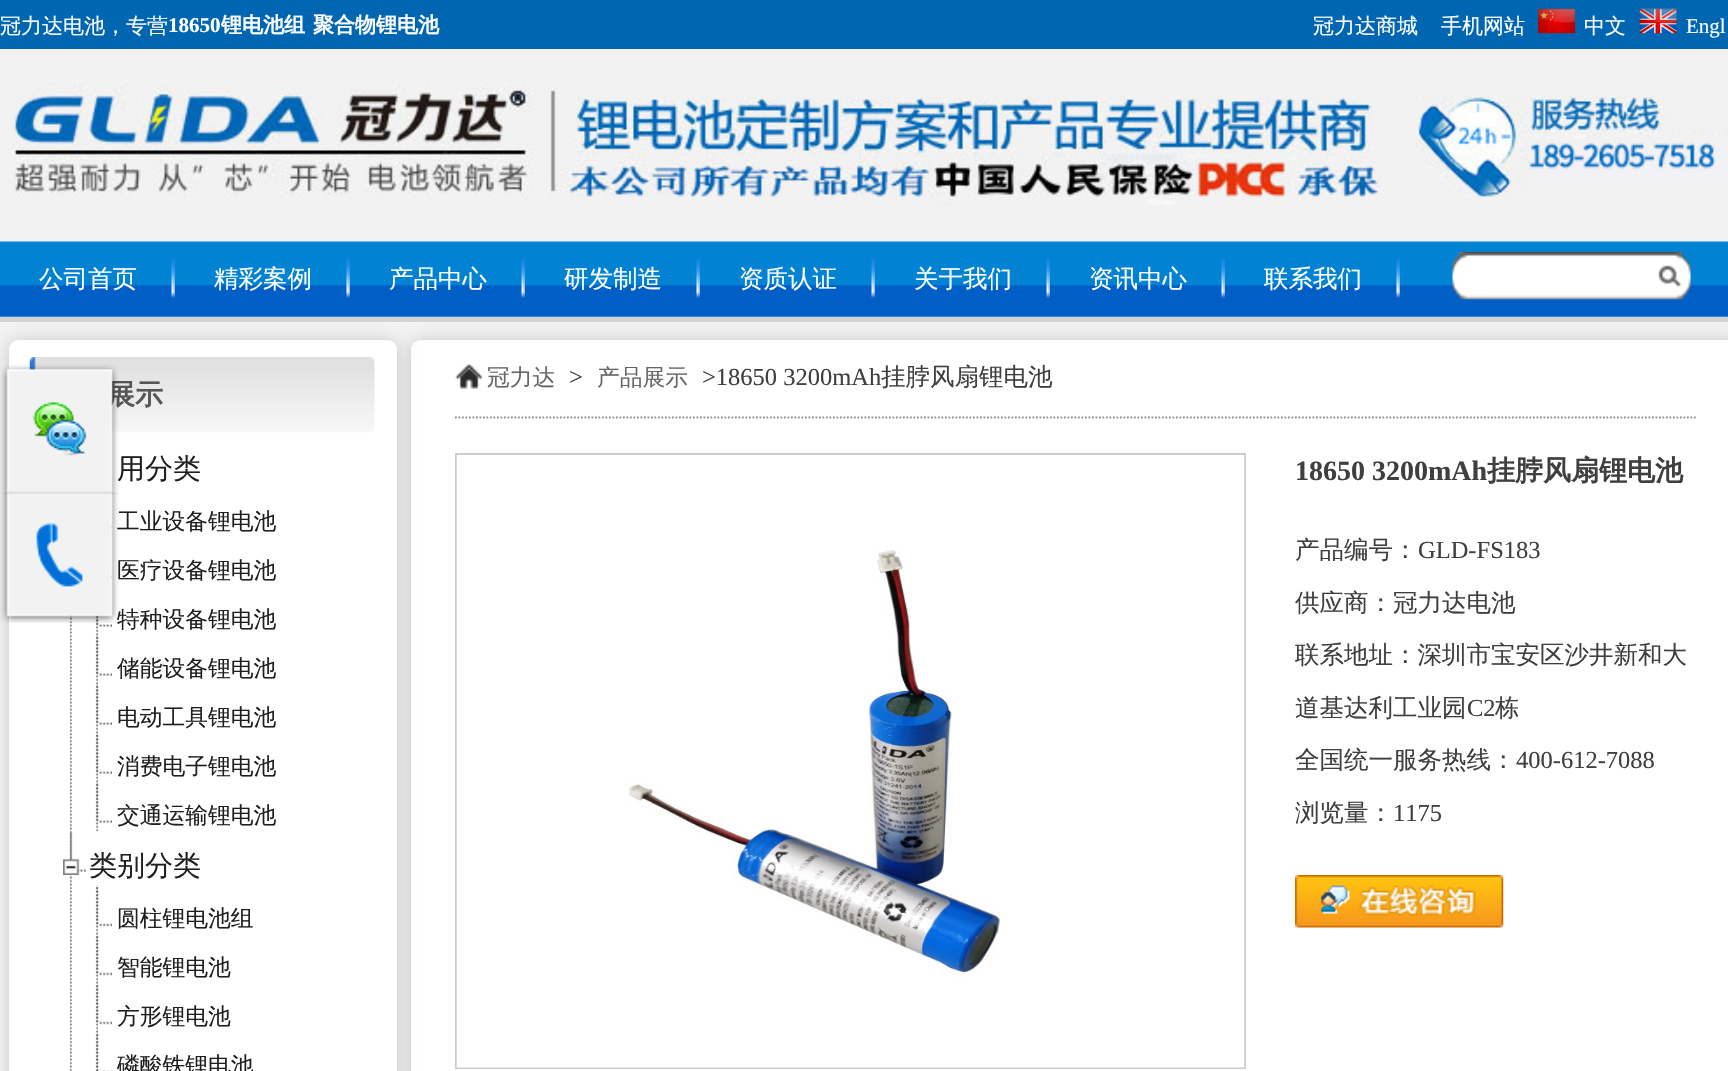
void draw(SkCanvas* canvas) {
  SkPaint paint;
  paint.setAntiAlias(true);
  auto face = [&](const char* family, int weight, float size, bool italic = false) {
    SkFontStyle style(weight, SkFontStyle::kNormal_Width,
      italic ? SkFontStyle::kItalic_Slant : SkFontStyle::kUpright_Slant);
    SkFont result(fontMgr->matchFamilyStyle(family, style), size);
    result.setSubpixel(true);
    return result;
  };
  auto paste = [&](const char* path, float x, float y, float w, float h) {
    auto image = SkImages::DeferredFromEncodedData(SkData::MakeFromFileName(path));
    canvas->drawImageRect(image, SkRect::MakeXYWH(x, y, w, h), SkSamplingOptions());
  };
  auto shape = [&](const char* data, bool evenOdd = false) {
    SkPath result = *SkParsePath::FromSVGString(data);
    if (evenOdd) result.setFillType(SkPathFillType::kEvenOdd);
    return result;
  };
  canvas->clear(0xffffffff);
  paint.setColor(0xff0066b1);
  canvas->drawRect(SkRect::MakeXYWH(0, 0, 1728, 49), paint);
  paste("img/1.png", 1538, 8, 37, 26);
  paste("img/2.png", 1639, 8, 38, 26);
  paint.setColor(0xfff2f2f2);
  canvas->drawRect(SkRect::MakeXYWH(0, 49, 1728, 193), paint);
  paste("img/3.png", 14, 84, 1367, 121);
  paste("img/4.png", 1415, 95, 313, 103);
  paste("img/5.png", 0, 241, 1728, 76);
  paint.setColor(0xffd3d3d3);
  canvas->drawRect(SkRect::MakeXYWH(0, 317, 1728, 5), paint);
  paste("img/6.png", 171, 257, 4, 41);
  paste("img/7.png", 346, 257, 4, 41);
  paste("img/7.png", 521, 257, 4, 41);
  paste("img/7.png", 696, 257, 4, 41);
  paste("img/7.png", 871, 257, 4, 41);
  paste("img/7.png", 1046, 257, 4, 41);
  paste("img/7.png", 1221, 257, 4, 41);
  paste("img/7.png", 1396, 257, 4, 41);
  paste("img/8.png", 1452, 252, 239, 48);
  paint.setColor(0xfff3f3f3);
  canvas->drawRect(SkRect::MakeXYWH(0, 322, 1728, 749), paint);
  paint.setColor(0xffc5c5c5);
  paint.setMaskFilter(SkMaskFilter::MakeBlur(kNormal_SkBlurStyle, 9));
  canvas->drawRoundRect(SkRect::MakeXYWH(411, 341, 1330, 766), 9, 9, paint);
  paint.setMaskFilter(nullptr);
  paint.setColor(0xffffffff);
  canvas->drawRoundRect(SkRect::MakeXYWH(411, 340, 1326, 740), 9, 9, paint);
  paint.setColor(0xffc5c5c5);
  paint.setMaskFilter(SkMaskFilter::MakeBlur(kNormal_SkBlurStyle, 9));
  canvas->drawRoundRect(SkRect::MakeXYWH(9, 341, 388, 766), 9, 9, paint);
  paint.setMaskFilter(nullptr);
  paint.setColor(0xffffffff);
  canvas->drawRoundRect(SkRect::MakeXYWH(9, 340, 388, 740), 9, 9, paint);
  paste("img/11.png", 29, 357, 346, 76);
  paste("img/12.png", 70, 614, 2, 457);
  paste("img/13.png", 96, 614, 2, 218);
  paste("img/14.png", 110, 526, 2, 3);
  paste("img/14.png", 110, 575, 2, 3);
  paste("img/15.png", 95, 614, 17, 13);
  paste("img/16.png", 95, 636, 17, 40);
  paste("img/16.png", 95, 685, 17, 40);
  paste("img/17.png", 95, 734, 17, 40);
  paste("img/18.png", 95, 783, 17, 40);
  paste("img/19.png", 69, 832, 17, 40);
  paste("img/20.png", 63, 858, 17, 17);
  paste("img/21.png", 96, 885, 2, 186);
  paste("img/22.png", 95, 886, 17, 41);
  paste("img/23.png", 95, 935, 17, 41);
  paste("img/24.png", 95, 984, 17, 41);
  paste("img/25.png", 95, 1033, 17, 38);
  paste("img/26.png", 455, 364, 28, 25);
  paint.setStroke(true);
  paint.setStrokeWidth(1.8f);
  paint.setColor(0xff909090);
  paint.setPathEffect(SkDashPathEffect::Make({{1.75f, 1.75f}}, 0));
  canvas->drawPath(shape("M455 417.5H1697.5"), paint);
  paint.setPathEffect(nullptr);
  paint.setStrokeWidth(2);
  paint.setColor(0xffcccccc);
  canvas->drawRect(SkRect::MakeXYWH(456, 454, 789, 614), paint);
  paste("img/27.png", 456, 455, 789, 613);
  paste("img/28.png", 1295, 875, 209, 53);
  auto f0 = face("WenQuanYi Zen Hei", 500, 21);
  paint.setStroke(false);
  paint.setColor(0xffffffff);
  canvas->drawString("冠力达电池，专营", 0, 33, f0, paint);
  auto f1 = face("Liberation Serif", 700, 21);
  canvas->drawString("18650", 168, 32, f1, paint);
  auto f2 = face("WenQuanYi Zen Hei", 700, 21);
  canvas->drawString("锂电池组", 221, 32, f2, paint);
  canvas->drawString("聚合物锂电池", 313, 32, f2, paint);
  {
    const struct { const char* s; float x, y; } items[] = {
      {"冠力达商城", 1313, 33},
      {"手机网站", 1441, 33},
      {"中文", 1584, 33},
    };
    for (auto [s, x, y] : items) {
      canvas->drawString(s, x, y, f0, paint);
    }
  }
  auto f3 = face("Liberation Serif", 400, 21);
  canvas->drawString("Engl", 1686, 33, f3, paint);
  auto f4 = face("WenQuanYi Zen Hei", 500, 24.5f);
  {
    const struct { const char* s; float x, y; } items[] = {
      {"公司首页", 39, 287},
      {"精彩案例", 214, 287},
      {"产品中心", 389, 287},
      {"研发制造", 564, 287},
      {"资质认证", 739, 287},
      {"关于我们", 914, 287},
      {"资讯中心", 1089, 287},
      {"联系我们", 1264, 287},
    };
    for (auto [s, x, y] : items) {
      canvas->drawString(s, x, y, f4, paint);
    }
  }
  auto f5 = face("WenQuanYi Zen Hei", 700, 28);
  paint.setColor(0xff555555);
  canvas->drawString("展示", 107, 404, f5, paint);
  auto f6 = face("WenQuanYi Zen Hei", 500, 28);
  paint.setColor(0xff1f1f1f);
  canvas->drawString("用分类", 117, 478, f6, paint);
  paste("img/9.png", 0, 364, 119, 130);
  auto f7 = face("WenQuanYi Zen Hei", 500, 22.75f);
  {
    const struct { const char* s; float x, y; } items[] = {
      {"工业设备锂电池", 117, 529},
      {"医疗设备锂电池", 117, 578},
      {"特种设备锂电池", 117, 627},
    };
    for (auto [s, x, y] : items) {
      canvas->drawString(s, x, y, f7, paint);
    }
  }
  paste("img/10.png", 0, 493, 119, 130);
  {
    const struct { const char* s; float x, y; } items[] = {
      {"储能设备锂电池", 117, 676},
      {"电动工具锂电池", 117, 725},
      {"消费电子锂电池", 117, 774},
      {"交通运输锂电池", 117, 823},
    };
    for (auto [s, x, y] : items) {
      canvas->drawString(s, x, y, f7, paint);
    }
  }
  canvas->drawString("类别分类", 89, 875, f6, paint);
  {
    const struct { const char* s; float x, y; } items[] = {
      {"圆柱锂电池组", 117, 926},
      {"智能锂电池", 117, 975},
      {"方形锂电池", 117, 1024},
      {"磷酸铁锂电池", 117, 1073},
    };
    for (auto [s, x, y] : items) {
      canvas->drawString(s, x, y, f7, paint);
    }
  }
  paint.setColor(0xff666666);
  canvas->drawString("冠力达", 487, 385, f7, paint);
  auto f8 = face("Liberation Serif", 400, 24.5f);
  paint.setColor(0xff3f3f3f);
  canvas->drawString(">", 569, 385, f8, paint);
  paint.setColor(0xff666666);
  canvas->drawString("产品展示", 597, 385, f7, paint);
  paint.setColor(0xff3f3f3f);
  canvas->drawString(">18650 3200mAh", 702, 385, f8, paint);
  canvas->drawString("挂脖风扇锂电池", 881, 385, f4, paint);
  auto f9 = face("Liberation Serif", 700, 28);
  canvas->drawString("18650 3200mAh", 1295, 480, f9, paint);
  canvas->drawString("挂脖风扇锂电池", 1487, 480, f5, paint);
  canvas->drawString("产品编号：", 1295, 558, f4, paint);
  canvas->drawString("GLD-FS183", 1418, 558, f8, paint);
  {
    const struct { const char* s; float x, y; } items[] = {
      {"供应商：冠力达电池", 1295, 611},
      {"联系地址：深圳市宝安区沙井新和大", 1295, 663},
      {"道基达利工业园", 1295, 716},
    };
    for (auto [s, x, y] : items) {
      canvas->drawString(s, x, y, f4, paint);
    }
  }
  canvas->drawString("C2", 1467, 716, f8, paint);
  canvas->drawString("栋", 1495, 716, f4, paint);
  canvas->drawString("全国统一服务热线：", 1295, 768, f4, paint);
  canvas->drawString("400-612-7088", 1516, 768, f8, paint);
  canvas->drawString("浏览量：", 1295, 821, f4, paint);
  canvas->drawString("1175", 1393, 821, f8, paint);
}
